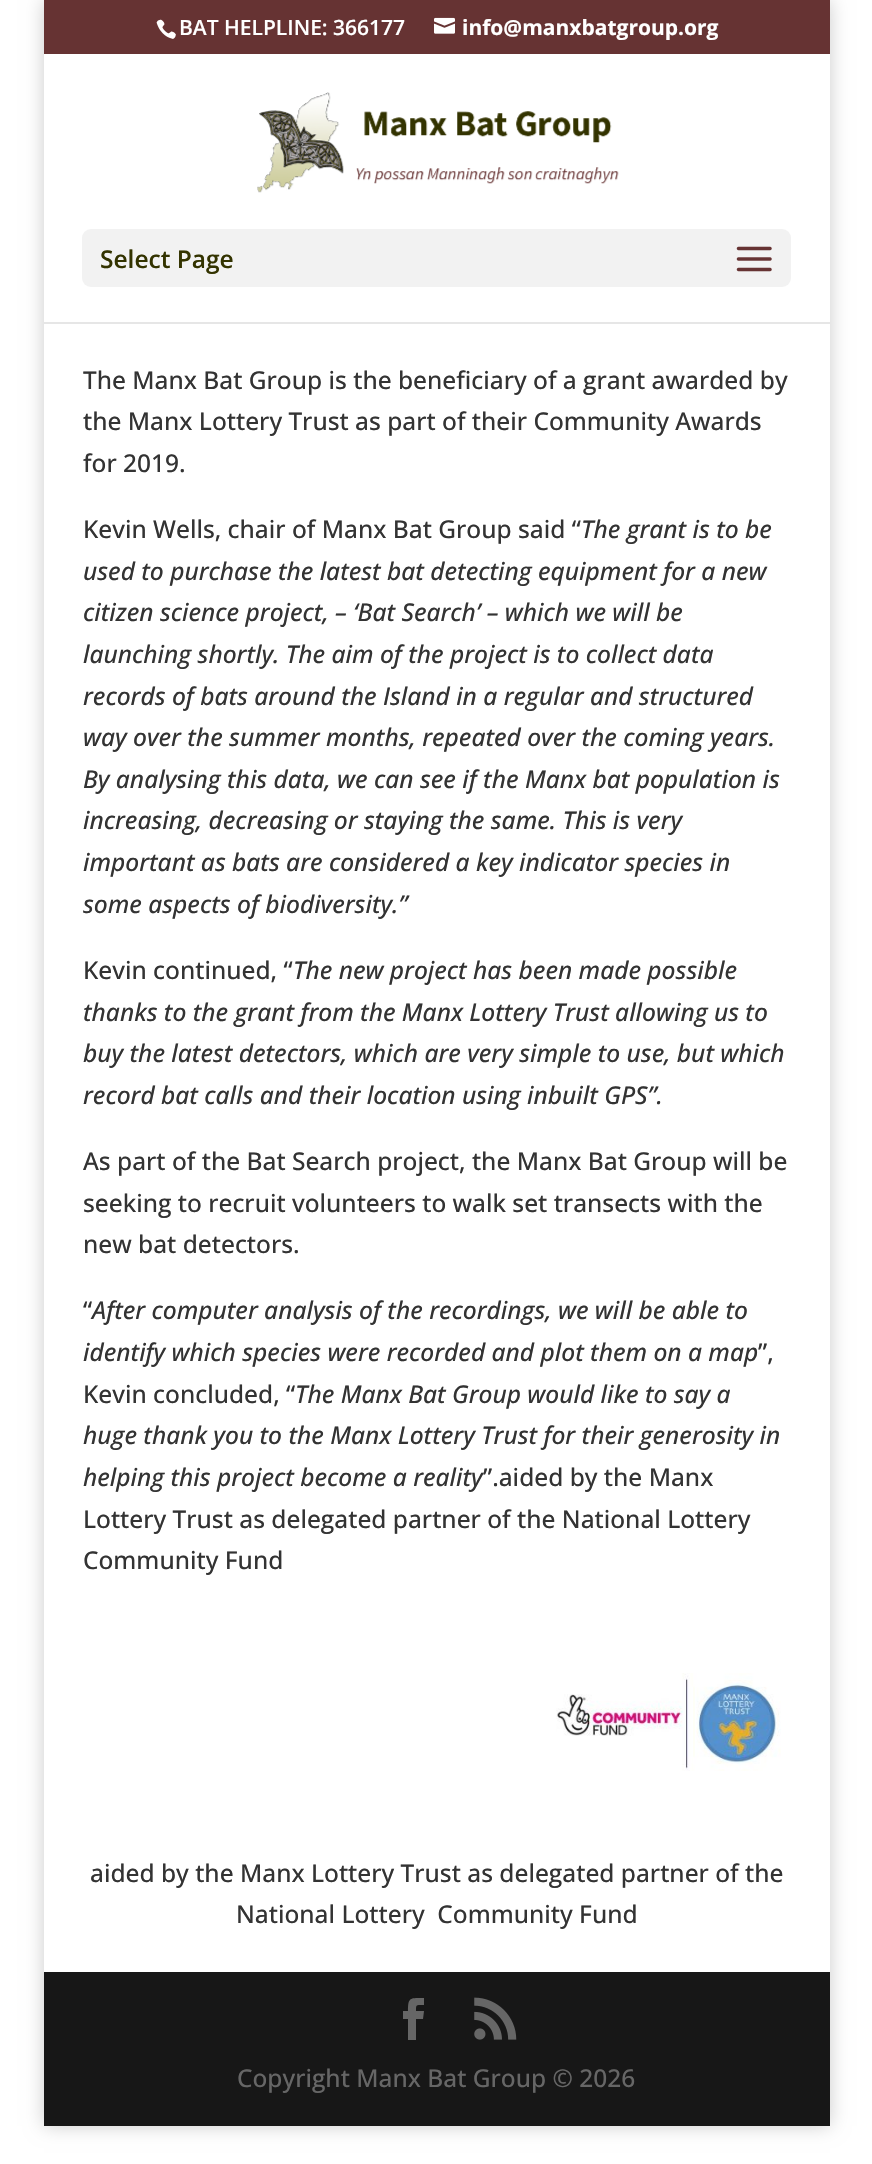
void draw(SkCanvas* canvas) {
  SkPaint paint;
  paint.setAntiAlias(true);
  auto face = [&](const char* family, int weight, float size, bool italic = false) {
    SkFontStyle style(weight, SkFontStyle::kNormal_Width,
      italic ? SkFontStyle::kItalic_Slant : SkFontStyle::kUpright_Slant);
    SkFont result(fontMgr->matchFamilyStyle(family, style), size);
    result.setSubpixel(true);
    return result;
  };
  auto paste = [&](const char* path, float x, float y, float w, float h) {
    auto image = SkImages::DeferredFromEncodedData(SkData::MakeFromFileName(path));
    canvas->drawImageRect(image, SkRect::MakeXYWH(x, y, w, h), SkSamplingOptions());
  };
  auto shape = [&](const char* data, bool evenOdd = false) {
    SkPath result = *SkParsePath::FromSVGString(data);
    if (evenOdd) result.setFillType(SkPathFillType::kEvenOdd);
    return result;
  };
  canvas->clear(0xffffffff);
  paint.setColor(0x33000000);
  paint.setMaskFilter(SkMaskFilter::MakeBlur(kNormal_SkBlurStyle, 9));
  canvas->drawRect(SkRect::MakeXYWH(44, 0, 786, 2126), paint);
  paint.setMaskFilter(nullptr);
  paint.setColor(0xff663333);
  canvas->drawRect(SkRect::MakeXYWH(44, 0, 786, 54), paint);
  paste("img/1.png", 156, 19, 20, 20);
  paste("img/2.png", 434, 17, 21, 17);
  paint.setColor(0xffe6e6e6);
  canvas->drawPath(shape("M44 322V324H830V56V322Z"), paint);
  paint.setColor(0xffffffff);
  canvas->drawRect(SkRect::MakeXYWH(44, 54, 786, 268), paint);
  paste("img/3.png", 257, 92, 362, 101);
  paint.setColor(0xfff2f2f2);
  canvas->drawRoundRect(SkRect::MakeXYWH(82, 229, 709, 58), 9, 9, paint);
  paste("img/4.png", 736, 246, 36, 26);
  paint.setColor(0xffffffff);
  canvas->drawRect(SkRect::MakeXYWH(44, 324, 786, 1648), paint);
  paste("img/5.png", 556, 1673, 225, 98);
  paint.setColor(0xff171717);
  canvas->drawRect(SkRect::MakeXYWH(44, 1972, 786, 154), paint);
  paint.setColor(0xff666666);
  canvas->drawPath(shape("M408 2040H416V2019H423L424 2011H416C416 2004 416 2005 424 2005V1998C410 1998 408 1997 408 2011H403V2019H408Z"), paint);
  paste("img/6.png", 474, 1997, 43, 43);
  auto f0 = face("Open Sans", 600, 21);
  paint.setColor(0xffffffff);
  canvas->drawString("BAT HELPLINE: 366177", 179, 35, f0, paint);
  auto f1 = face("Open Sans", 700, 21);
  canvas->drawString("info@manxbatgroup.org", 462, 35, f1, paint);
  auto f2 = face("Open Sans", 600, 24.5f);
  paint.setColor(0xff333300);
  canvas->drawString("Select Page", 100, 268, f2, paint);
  auto f3 = face("Open Sans", 500, 24.5f);
  paint.setColor(0xff333333);
  {
    const struct { const char* s; float x, y; } items[] = {
      {"The Manx Bat Group is the beneficiary of a grant awarded by", 83, 389},
      {"the Manx Lottery Trust as part of their Community Awards", 83, 430},
      {"for 2019.", 83, 472},
      {"Kevin Wells, chair of Manx Bat Group said “", 83, 538},
    };
    for (auto [s, x, y] : items) {
      canvas->drawString(s, x, y, f3, paint);
    }
  }
  auto f4 = face("Open Sans", 500, 24.5f, true);
  {
    const struct { const char* s; float x, y; } items[] = {
      {"The grant is to be", 581, 538},
      {"used to purchase the latest bat detecting equipment for a new", 83, 580},
      {"citizen science project, – ‘Bat Search’ – which we will be", 83, 621},
      {"launching shortly. The aim of the project is to collect data", 83, 663},
      {"records of bats around the Island in a regular and structured", 83, 705},
      {"way over the summer months, repeated over the coming years.", 83, 746},
      {"By analysing this data, we can see if the Manx bat population is", 83, 788},
      {"increasing, decreasing or staying the same. This is very", 83, 829},
      {"important as bats are considered a key indicator species in", 83, 871},
      {"some aspects of biodiversity.”", 83, 913},
    };
    for (auto [s, x, y] : items) {
      canvas->drawString(s, x, y, f4, paint);
    }
  }
  canvas->drawString("Kevin continued, “", 83, 979, f3, paint);
  {
    const struct { const char* s; float x, y; } items[] = {
      {"The new project has been made possible", 293, 979},
      {"thanks to the grant from the Manx Lottery Trust allowing us to", 83, 1021},
      {"buy the latest detectors, which are very simple to use, but which", 83, 1062},
      {"record bat calls and their location using inbuilt GPS”.", 83, 1104},
    };
    for (auto [s, x, y] : items) {
      canvas->drawString(s, x, y, f4, paint);
    }
  }
  {
    const struct { const char* s; float x, y; } items[] = {
      {"As part of the Bat Search project, the Manx Bat Group will be", 83, 1170},
      {"seeking to recruit volunteers to walk set transects with the", 83, 1212},
      {"new bat detectors.", 83, 1253},
      {"“", 83, 1319},
    };
    for (auto [s, x, y] : items) {
      canvas->drawString(s, x, y, f3, paint);
    }
  }
  canvas->drawString("After computer analysis of the recordings, we will be able to", 92, 1319, f4, paint);
  canvas->drawString("identify which species were recorded and plot them on a map", 83, 1361, f4, paint);
  canvas->drawString("”,", 758, 1361, f3, paint);
  canvas->drawString("Kevin concluded, “", 83, 1403, f3, paint);
  {
    const struct { const char* s; float x, y; } items[] = {
      {"The Manx Bat Group would like to say a", 295, 1403},
      {"huge thank you to the Manx Lottery Trust for their generosity in", 83, 1444},
      {"helping this project become a reality", 83, 1486},
    };
    for (auto [s, x, y] : items) {
      canvas->drawString(s, x, y, f4, paint);
    }
  }
  {
    const struct { const char* s; float x, y; } items[] = {
      {"”.aided by the Manx", 483, 1486},
      {"Lottery Trust as delegated partner of the National Lottery", 83, 1528},
      {"Community Fund", 83, 1569},
      {"aided by the Manx Lottery Trust as delegated partner of the", 90, 1882},
      {"National Lottery  Community Fund", 236, 1923},
    };
    for (auto [s, x, y] : items) {
      canvas->drawString(s, x, y, f3, paint);
    }
  }
  paint.setColor(0xff666666);
  canvas->drawString("Copyright Manx Bat Group © 2026", 237, 2087, f3, paint);
}
